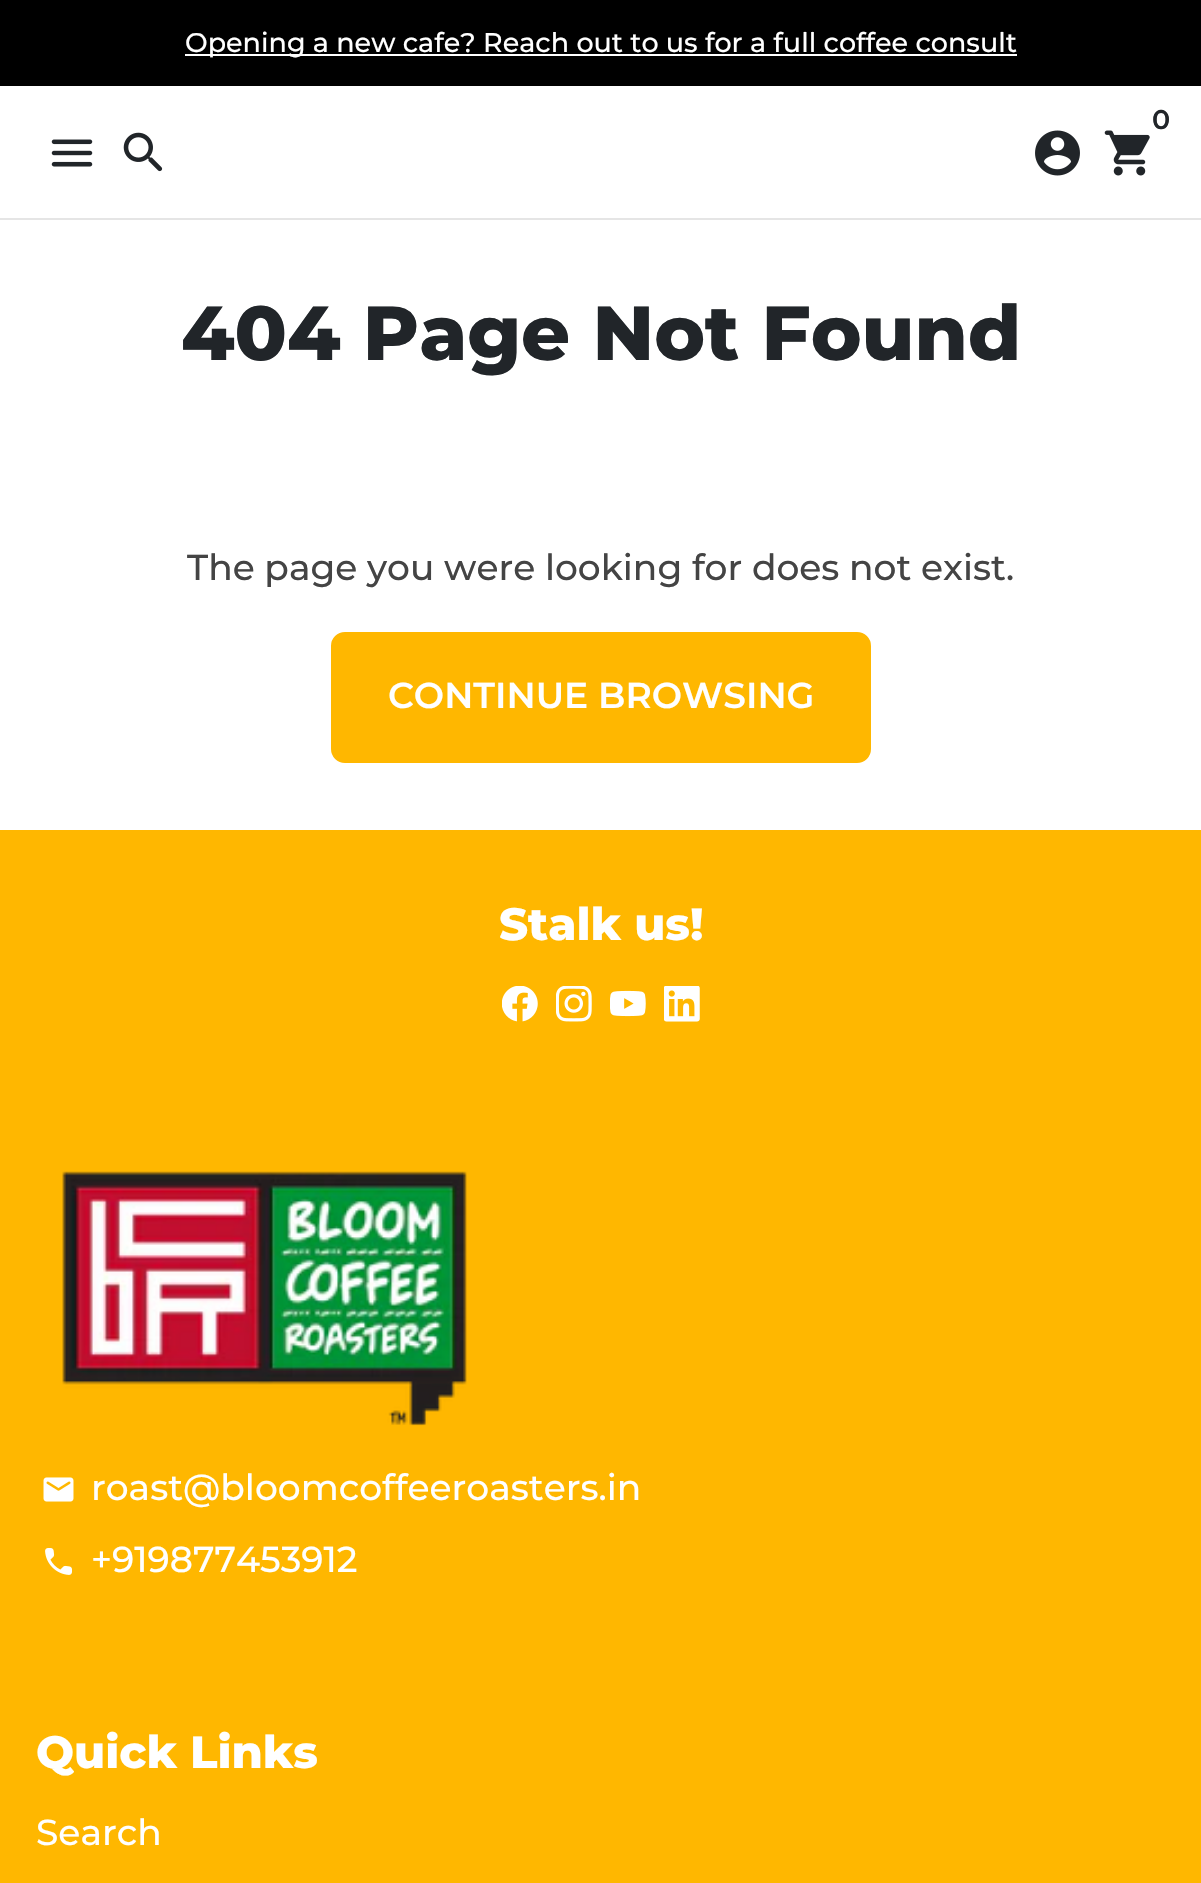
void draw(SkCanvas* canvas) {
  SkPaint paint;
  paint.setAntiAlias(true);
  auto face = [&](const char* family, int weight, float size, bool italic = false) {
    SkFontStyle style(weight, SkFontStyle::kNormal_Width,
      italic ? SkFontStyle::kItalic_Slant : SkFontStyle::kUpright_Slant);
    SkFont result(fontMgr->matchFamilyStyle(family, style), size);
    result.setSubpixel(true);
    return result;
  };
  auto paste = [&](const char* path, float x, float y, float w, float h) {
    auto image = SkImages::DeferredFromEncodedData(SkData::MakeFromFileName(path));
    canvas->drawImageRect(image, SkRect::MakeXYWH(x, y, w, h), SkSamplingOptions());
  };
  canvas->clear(0xffffffff);
  {
    const struct { float x, y, w, h; SkColor color; } items[] = {
      {0, 0, 1201, 86, 0xff000000},
      {185, 54, 832, 2, 0xffffffff},
      {0, 218, 1201, 2, 0xffe5e5e5},
    };
    for (auto [x, y, w, h, color] : items) {
      paint.setColor(color);
      canvas->drawRect(SkRect::MakeXYWH(x, y, w, h), paint);
    }
  }
  paste("img/1.png", 1104, 130, 46, 46);
  paste("img/2.png", 1035, 130, 45, 46);
  paste("img/3.png", 51, 139, 42, 28);
  paste("img/4.png", 123, 132, 40, 40);
  paint.setColor(0xffffb700);
  canvas->drawRoundRect(SkRect::MakeXYWH(332, 633, 538, 129), 13, 13, paint);
  paint.setStroke(true);
  paint.setStrokeWidth(2);
  canvas->drawRoundRect(SkRect::MakeXYWH(332, 633, 538, 129), 13, 13, paint);
  paint.setStroke(false);
  canvas->drawRect(SkRect::MakeXYWH(0, 830, 1201, 1053), paint);
  paste("img/5.png", 502, 986, 36, 36);
  paste("img/6.png", 556, 986, 36, 36);
  paste("img/7.png", 610, 990, 36, 27);
  paste("img/8.png", 664, 986, 36, 36);
  paste("img/9.png", 62, 1171, 405, 255);
  paste("img/10.png", 43, 1477, 31, 25);
  paste("img/11.png", 45, 1548, 27, 27);
  auto f0 = face("Montserrat", 500, 27);
  paint.setColor(0xffffffff);
  canvas->drawString("Opening a new cafe? Reach out to us for a full coffee consult", 185, 52, f0, paint);
  auto f1 = face("Montserrat", 600, 27);
  paint.setColor(0xff212529);
  canvas->drawString("0", 1152, 129, f1, paint);
  auto f2 = face("Montserrat", 800, 76.5f);
  canvas->drawString("404 Page Not Found", 181, 360, f2, paint);
  auto f3 = face("Montserrat", 500, 36);
  paint.setColor(0xff444444);
  canvas->drawString("The page you were looking for does not exist.", 187, 580, f3, paint);
  auto f4 = face("Montserrat", 600, 36);
  paint.setColor(0xffffffff);
  canvas->drawString("CONTINUE BROWSING", 388, 708, f4, paint);
  auto f5 = face("Montserrat", 800, 45);
  canvas->drawString("Stalk us!", 499, 940, f5, paint);
  canvas->drawString("roast@bloomcoffeeroasters.in", 91, 1500, f3, paint);
  canvas->drawString("+919877453912", 91, 1572, f3, paint);
  canvas->drawString("Quick Links", 36, 1768, f5, paint);
  canvas->drawString("Search", 36, 1845, f3, paint);
}
